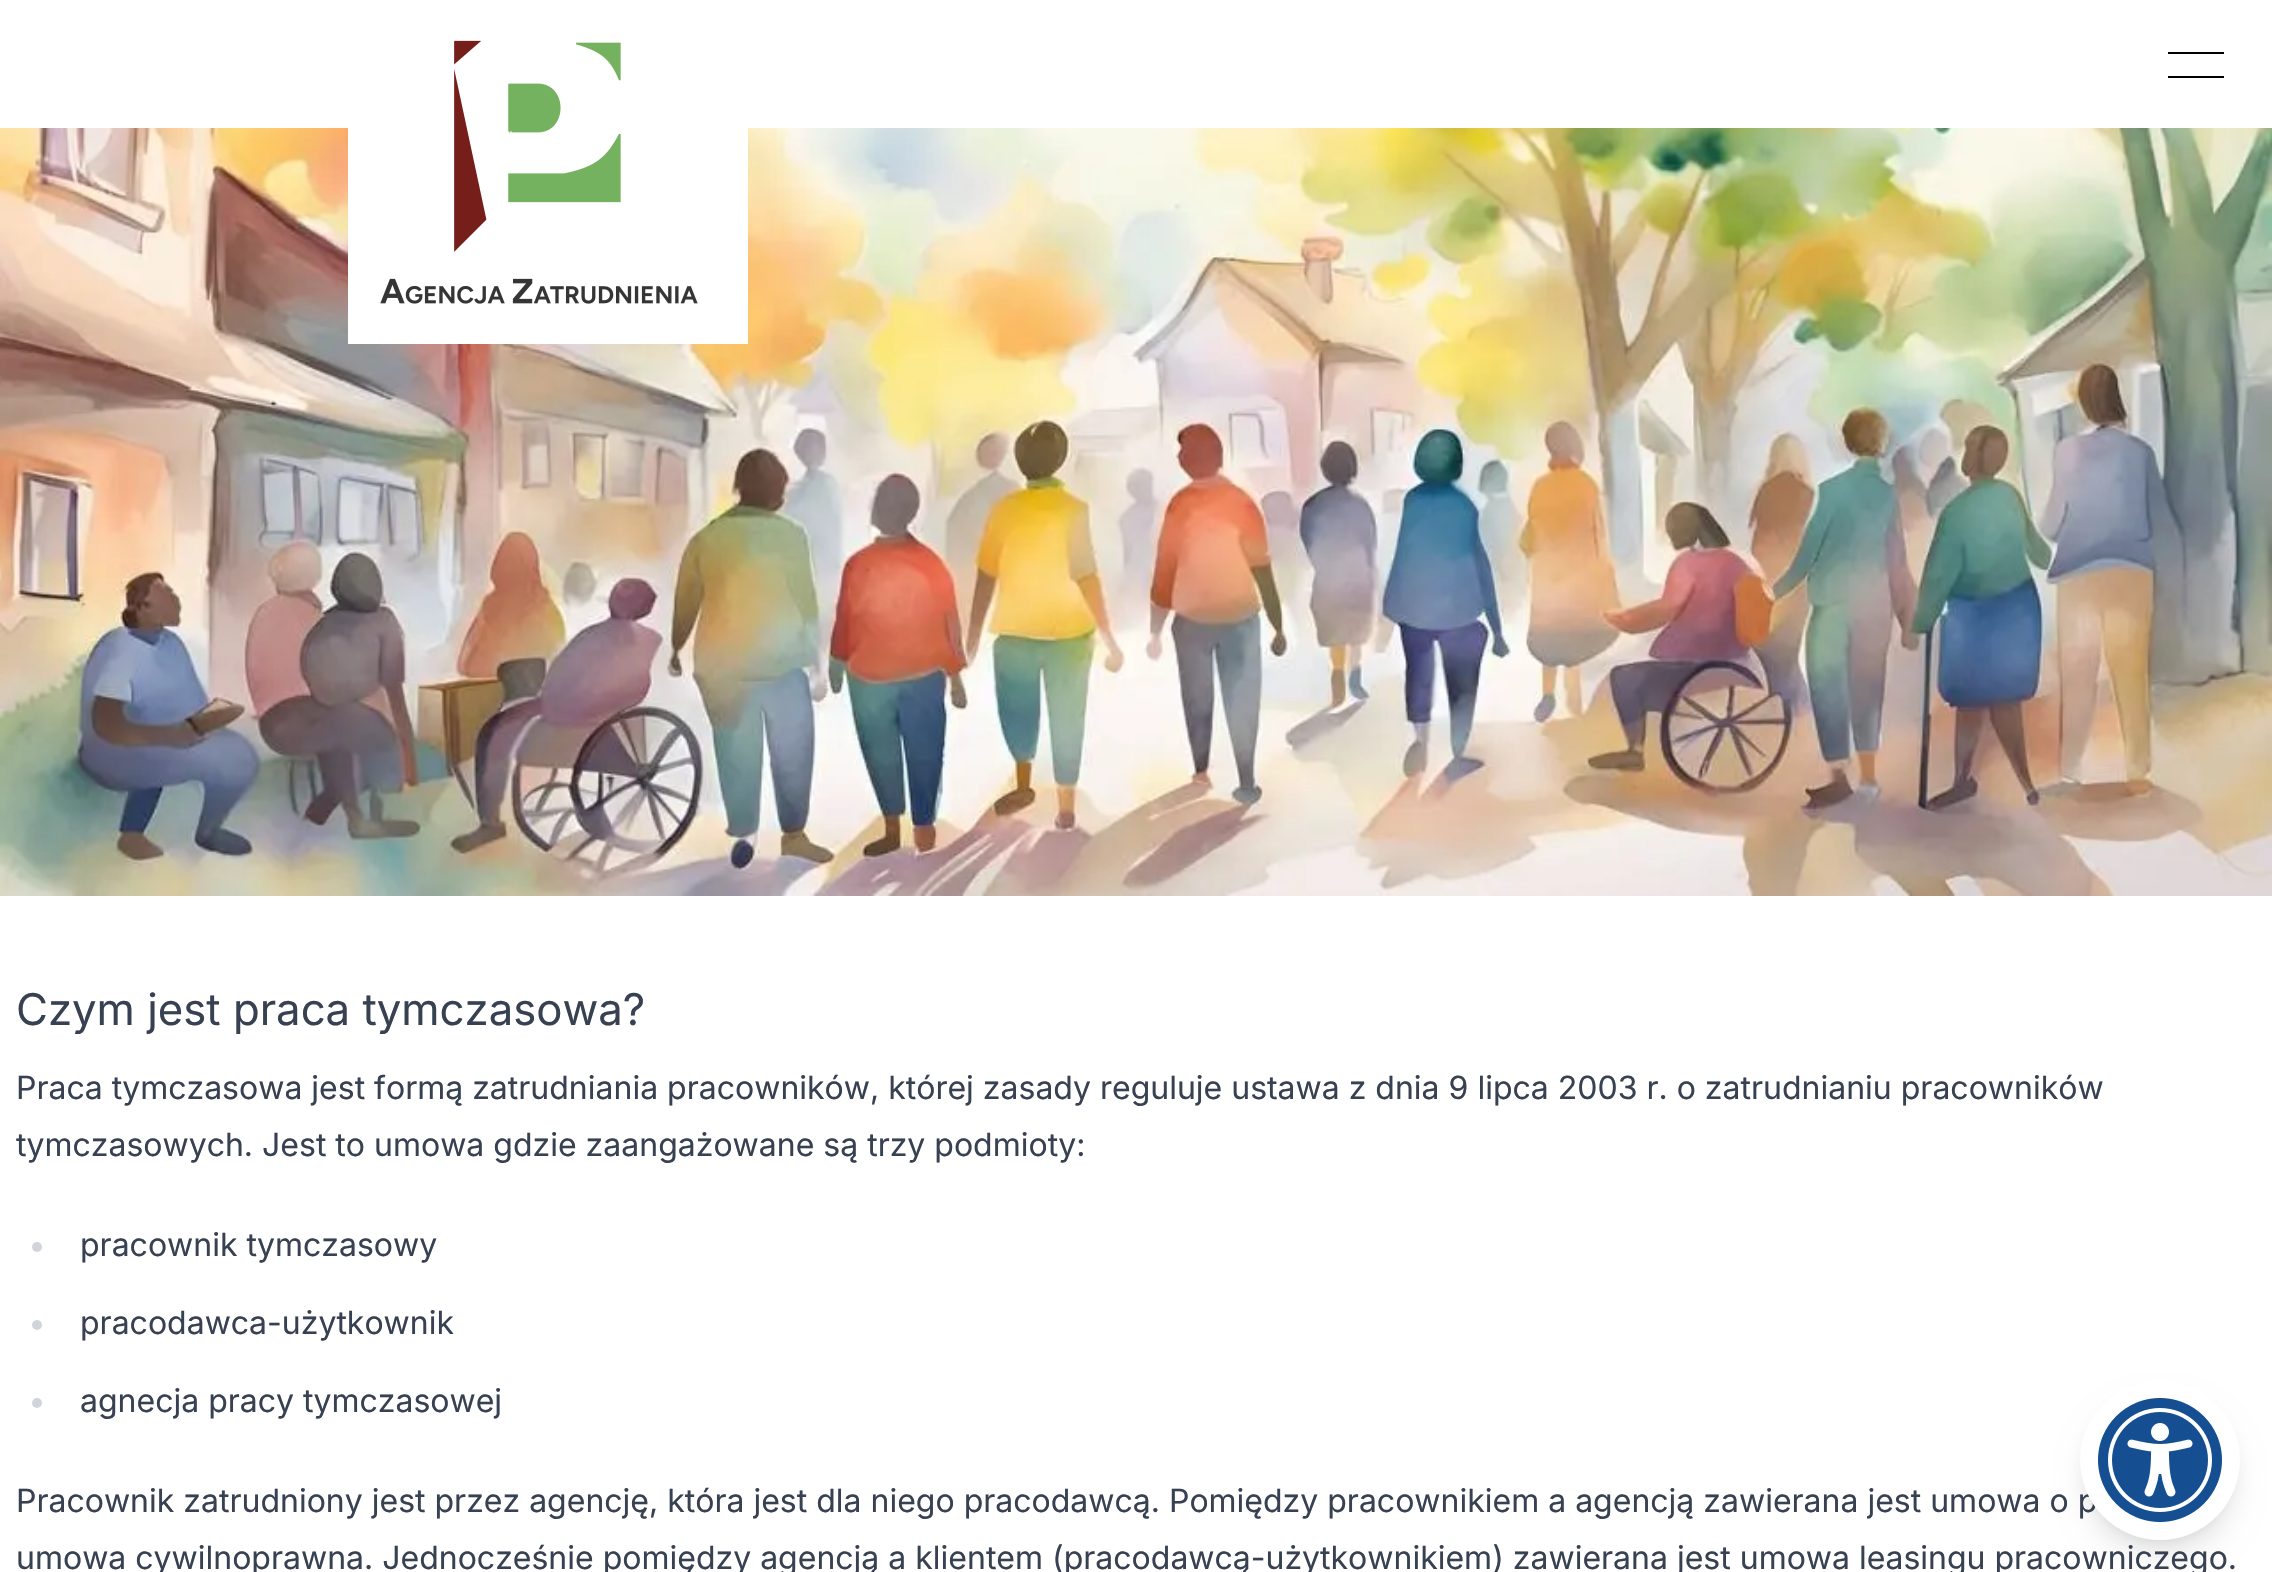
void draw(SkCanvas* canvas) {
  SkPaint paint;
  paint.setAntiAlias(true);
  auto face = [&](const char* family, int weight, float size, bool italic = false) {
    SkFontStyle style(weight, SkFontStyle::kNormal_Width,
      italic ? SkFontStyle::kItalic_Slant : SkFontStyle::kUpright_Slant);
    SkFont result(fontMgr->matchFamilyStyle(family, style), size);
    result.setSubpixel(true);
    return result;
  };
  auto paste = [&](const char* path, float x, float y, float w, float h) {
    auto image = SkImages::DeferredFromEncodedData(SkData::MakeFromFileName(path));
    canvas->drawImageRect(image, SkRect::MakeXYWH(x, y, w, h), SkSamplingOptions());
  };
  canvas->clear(0xffffffff);
  paste("img/3.png", 0, 128, 2272, 768);
  paint.setColor(0xffffffff);
  canvas->drawRect(SkRect::MakeXYWH(348, 128, 400, 216), paint);
  paste("img/1.png", 380, 40, 318, 264);
  paint.setColor(0xff000000);
  canvas->drawRect(SkRect::MakeXYWH(2168, 52, 56, 2), paint);
  canvas->drawRect(SkRect::MakeXYWH(2168, 76, 56, 2), paint);
  paint.setColor(0x1a000000);
  paint.setMaskFilter(SkMaskFilter::MakeBlur(kNormal_SkBlurStyle, 6));
  canvas->drawRoundRect(SkRect::MakeXYWH(2088, 1396, 144, 144), 72, 72, paint);
  paint.setMaskFilter(nullptr);
  paint.setMaskFilter(SkMaskFilter::MakeBlur(kNormal_SkBlurStyle, 15));
  canvas->drawRoundRect(SkRect::MakeXYWH(2086, 1406, 148, 148), 74, 74, paint);
  paint.setMaskFilter(nullptr);
  paint.setColor(0xffd1d5db);
  canvas->drawCircle(37, 1247, 5, paint);
  canvas->drawCircle(37, 1325, 5, paint);
  canvas->drawCircle(37, 1403, 5, paint);
  auto f0 = face("Inter", 400, 43.7f);
  paint.setColor(0xff374151);
  canvas->drawString("Czym jest praca tymczasowa?", 16, 1025, f0, paint);
  auto f1 = face("Inter", 400, 32);
  {
    const struct { const char* s; float x, y; } items[] = {
      {"Praca tymczasowa jest formą zatrudniania pracowników, której zasady reguluje ustawa z dnia 9 lipca 2003 r. o zatrudnianiu pracowników", 16, 1099},
      {"tymczasowych. Jest to umowa gdzie zaangażowane są trzy podmioty:", 16, 1156},
      {"pracownik tymczasowy", 80, 1256},
      {"pracodawca-użytkownik", 80, 1334},
      {"agnecja pracy tymczasowej", 80, 1412},
      {"Pracownik zatrudniony jest przez agencję, która jest dla niego pracodawcą. Pomiędzy pracownikiem a agencją zawierana jest umowa o p", 16, 1512},
    };
    for (auto [s, x, y] : items) {
      canvas->drawString(s, x, y, f1, paint);
    }
  }
  paint.setColor(0xffffffff);
  canvas->drawCircle(2160, 1460, 80, paint);
  paste("img/2.png", 2098, 1398, 124, 124);
  paint.setColor(0xff374151);
  canvas->drawString("umowa cywilnoprawna. Jednocześnie pomiędzy agencją a klientem (pracodawcą-użytkownikiem) zawierana jest umowa leasingu pracowniczego.", 16, 1569, f1, paint);
}
